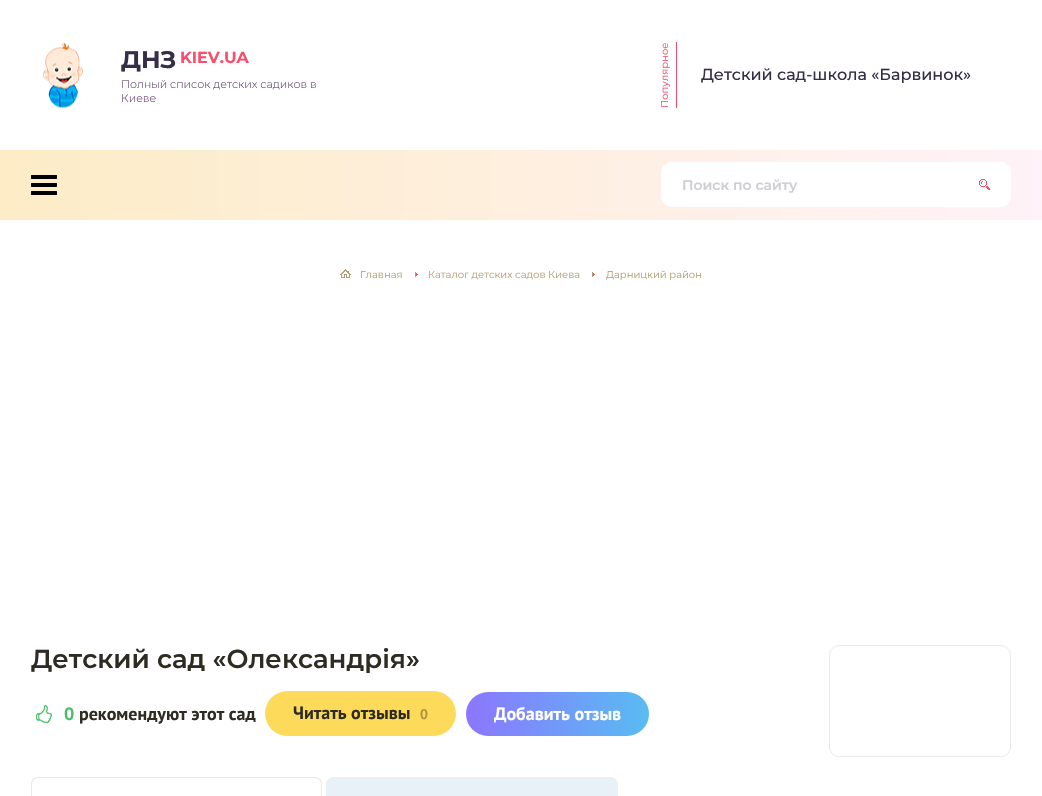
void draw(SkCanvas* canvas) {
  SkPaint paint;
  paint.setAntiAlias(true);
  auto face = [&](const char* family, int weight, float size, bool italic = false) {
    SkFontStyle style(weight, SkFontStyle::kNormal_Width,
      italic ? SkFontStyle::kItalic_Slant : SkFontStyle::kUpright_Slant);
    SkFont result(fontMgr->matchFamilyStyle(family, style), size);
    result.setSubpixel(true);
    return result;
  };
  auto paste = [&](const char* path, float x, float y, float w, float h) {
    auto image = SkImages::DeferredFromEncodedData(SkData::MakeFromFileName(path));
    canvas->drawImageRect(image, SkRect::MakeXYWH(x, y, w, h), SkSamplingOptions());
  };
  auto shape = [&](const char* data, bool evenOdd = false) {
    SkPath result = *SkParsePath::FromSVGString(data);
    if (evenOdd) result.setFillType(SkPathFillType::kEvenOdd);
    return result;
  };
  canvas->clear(0xffffffff);
  paste("img/1.png", 42, 42, 41, 66);
  paint.setColor(0xfff74e6e);
  canvas->drawRect(SkRect::MakeXYWH(676, 42, 1, 66), paint);
  {
    const SkColor colors[] = {0xfffdecc6, 0xfffff2f8};
    const float stops[] = {0, 1};
    const SkPoint ends[] = {{0, 185}, {1042, 185}};
    paint.setShader(SkGradientShader::MakeLinear(ends, colors, stops, 2, SkTileMode::kClamp));
    paint.setAlpha(255);
  }
  canvas->drawRect(SkRect::MakeXYWH(0, 150, 1042, 70), paint);
  paint.setShader(nullptr);
  paint.setColor(0xffffffff);
  canvas->drawRoundRect(SkRect::MakeXYWH(661.5f, 162.5f, 349, 44), 9.5f, 9.5f, paint);
  paint.setStroke(true);
  paint.setStrokeWidth(1);
  canvas->drawRoundRect(SkRect::MakeXYWH(661.5f, 162.5f, 349, 44), 9.5f, 9.5f, paint);
  paste("img/2.png", 979, 179, 11, 11);
  paste("img/3.png", 31, 175, 26, 20);
  paste("img/4.png", 340, 269, 11, 9);
  paint.setStroke(false);
  {
    const struct { float x, y, w, h; SkColor color; } items[] = {
      {415, 272, 1, 5, 0xffb39e71},
      {416, 273, 1, 3, 0xfff74e6e},
      {417, 274, 1, 1, 0xfff74e6e},
      {592, 272, 1, 5, 0xffb39e71},
      {593, 273, 1, 3, 0xfff74e6e},
      {594, 274, 1, 1, 0xfff74e6e},
    };
    for (auto [x, y, w, h, color] : items) {
      paint.setColor(color);
      canvas->drawRect(SkRect::MakeXYWH(x, y, w, h), paint);
    }
  }
  paste("img/5.png", 36, 705, 16, 18);
  paint.setColor(0xfffdda59);
  canvas->drawRoundRect(SkRect::MakeXYWH(265, 691, 191, 45), 22.5f, 22.5f, paint);
  {
    const SkColor colors[] = {0xff8c76ff, 0xff58bcf2};
    const float stops[] = {0, 1};
    const SkPoint ends[] = {{466, 714}, {649, 714}};
    paint.setShader(SkGradientShader::MakeLinear(ends, colors, stops, 2, SkTileMode::kClamp));
    paint.setAlpha(255);
  }
  canvas->drawRoundRect(SkRect::MakeXYWH(466, 692, 183, 44), 22, 22, paint);
  paint.setStroke(true);
  paint.setShader(nullptr);
  paint.setColor(0xffeae9e9);
  canvas->drawRoundRect(SkRect::MakeXYWH(829.5f, 645.5f, 181, 111), 9.5f, 9.5f, paint);
  paint.setStroke(false);
  canvas->drawPath(shape("M38 777C36 777 34 778 33 779L34 780C35 779 36 778 38 778H315C316 778 318 779 319 780L320 779C319 778 317 777 315 777Z"), paint);
  canvas->drawPath(shape("M322 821V784C322 782 321 780 320 779L319 780C320 781 321 782 321 784V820Z"), paint);
  canvas->drawPath(shape("M31 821L32 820V784C32 782 33 781 34 780L33 779C32 780 31 782 31 784Z"), paint);
  paint.setColor(0xffe8f0f8);
  canvas->drawPath(shape("M333 777.5H611C614.5 777.5 617.5 780.5 617.5 784V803.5H326.5V784C326.5 780.5 329.5 777.5 333 777.5Z"), paint);
  paint.setStroke(true);
  canvas->drawPath(shape("M333 777.5H611C614.5 777.5 617.5 780.5 617.5 784V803.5H326.5V784C326.5 780.5 329.5 777.5 333 777.5Z"), paint);
  auto f0 = face("Montserrat", 700, 24);
  paint.setStroke(false);
  paint.setColor(0xff362e48);
  canvas->drawString("ДНЗ", 121, 68, f0, paint);
  auto f1 = face("Montserrat", 700, 16);
  paint.setColor(0xfff74e6e);
  canvas->drawString("KIEV.UA", 180, 63, f1, paint);
  auto f2 = face("Montserrat", 300, 11);
  paint.setColor(0xff5e3f66);
  canvas->drawString("Полный список детских садиков в", 121, 88, f2, paint);
  canvas->drawString("Киеве", 121, 102, f2, paint);
  auto f3 = face("Montserrat", 400, 10);
  paint.setColor(0xfff74e6e);
  canvas->save();
  canvas->rotate(-90, 668, 108);
  canvas->drawString("Популярное", 668, 108, f3, paint);
  canvas->restore();
  auto f4 = face("Montserrat", 500, 16);
  paint.setColor(0xff362e48);
  canvas->drawString("Детский сад-школа «Барвинок»", 701, 80, f4, paint);
  auto f5 = face("Montserrat", 600, 14);
  paint.setColor(0xffcfcdd3);
  canvas->drawString("Поиск по сайту", 682, 190, f5, paint);
  paint.setColor(0xffb39e71);
  {
    const struct { const char* s; float x, y; } items[] = {
      {"Главная", 360, 278},
      {"Каталог детских садов Киева", 428, 278},
      {"Дарницкий район", 606, 278},
    };
    for (auto [s, x, y] : items) {
      canvas->drawString(s, x, y, f3, paint);
    }
  }
  auto f6 = face("Montserrat", 600, 26);
  paint.setColor(0xff2e2b23);
  canvas->drawString("Детский сад «Олександрія»", 31, 668, f6, paint);
  auto f7 = face("PT Sans", 700, 18);
  paint.setColor(0xff4bbc68);
  canvas->drawString("0", 64, 720, f7, paint);
  paint.setColor(0xff2e2b23);
  canvas->drawString("рекомендуют этот сад", 79, 720, f7, paint);
  canvas->drawString("Читать отзывы", 293, 719, f7, paint);
  auto f8 = face("PT Sans", 700, 14);
  paint.setColor(0xffaa9341);
  canvas->drawString("0", 420, 719, f8, paint);
  paint.setColor(0xffffffff);
  canvas->drawString("Добавить отзыв", 494, 720, f7, paint);
}
